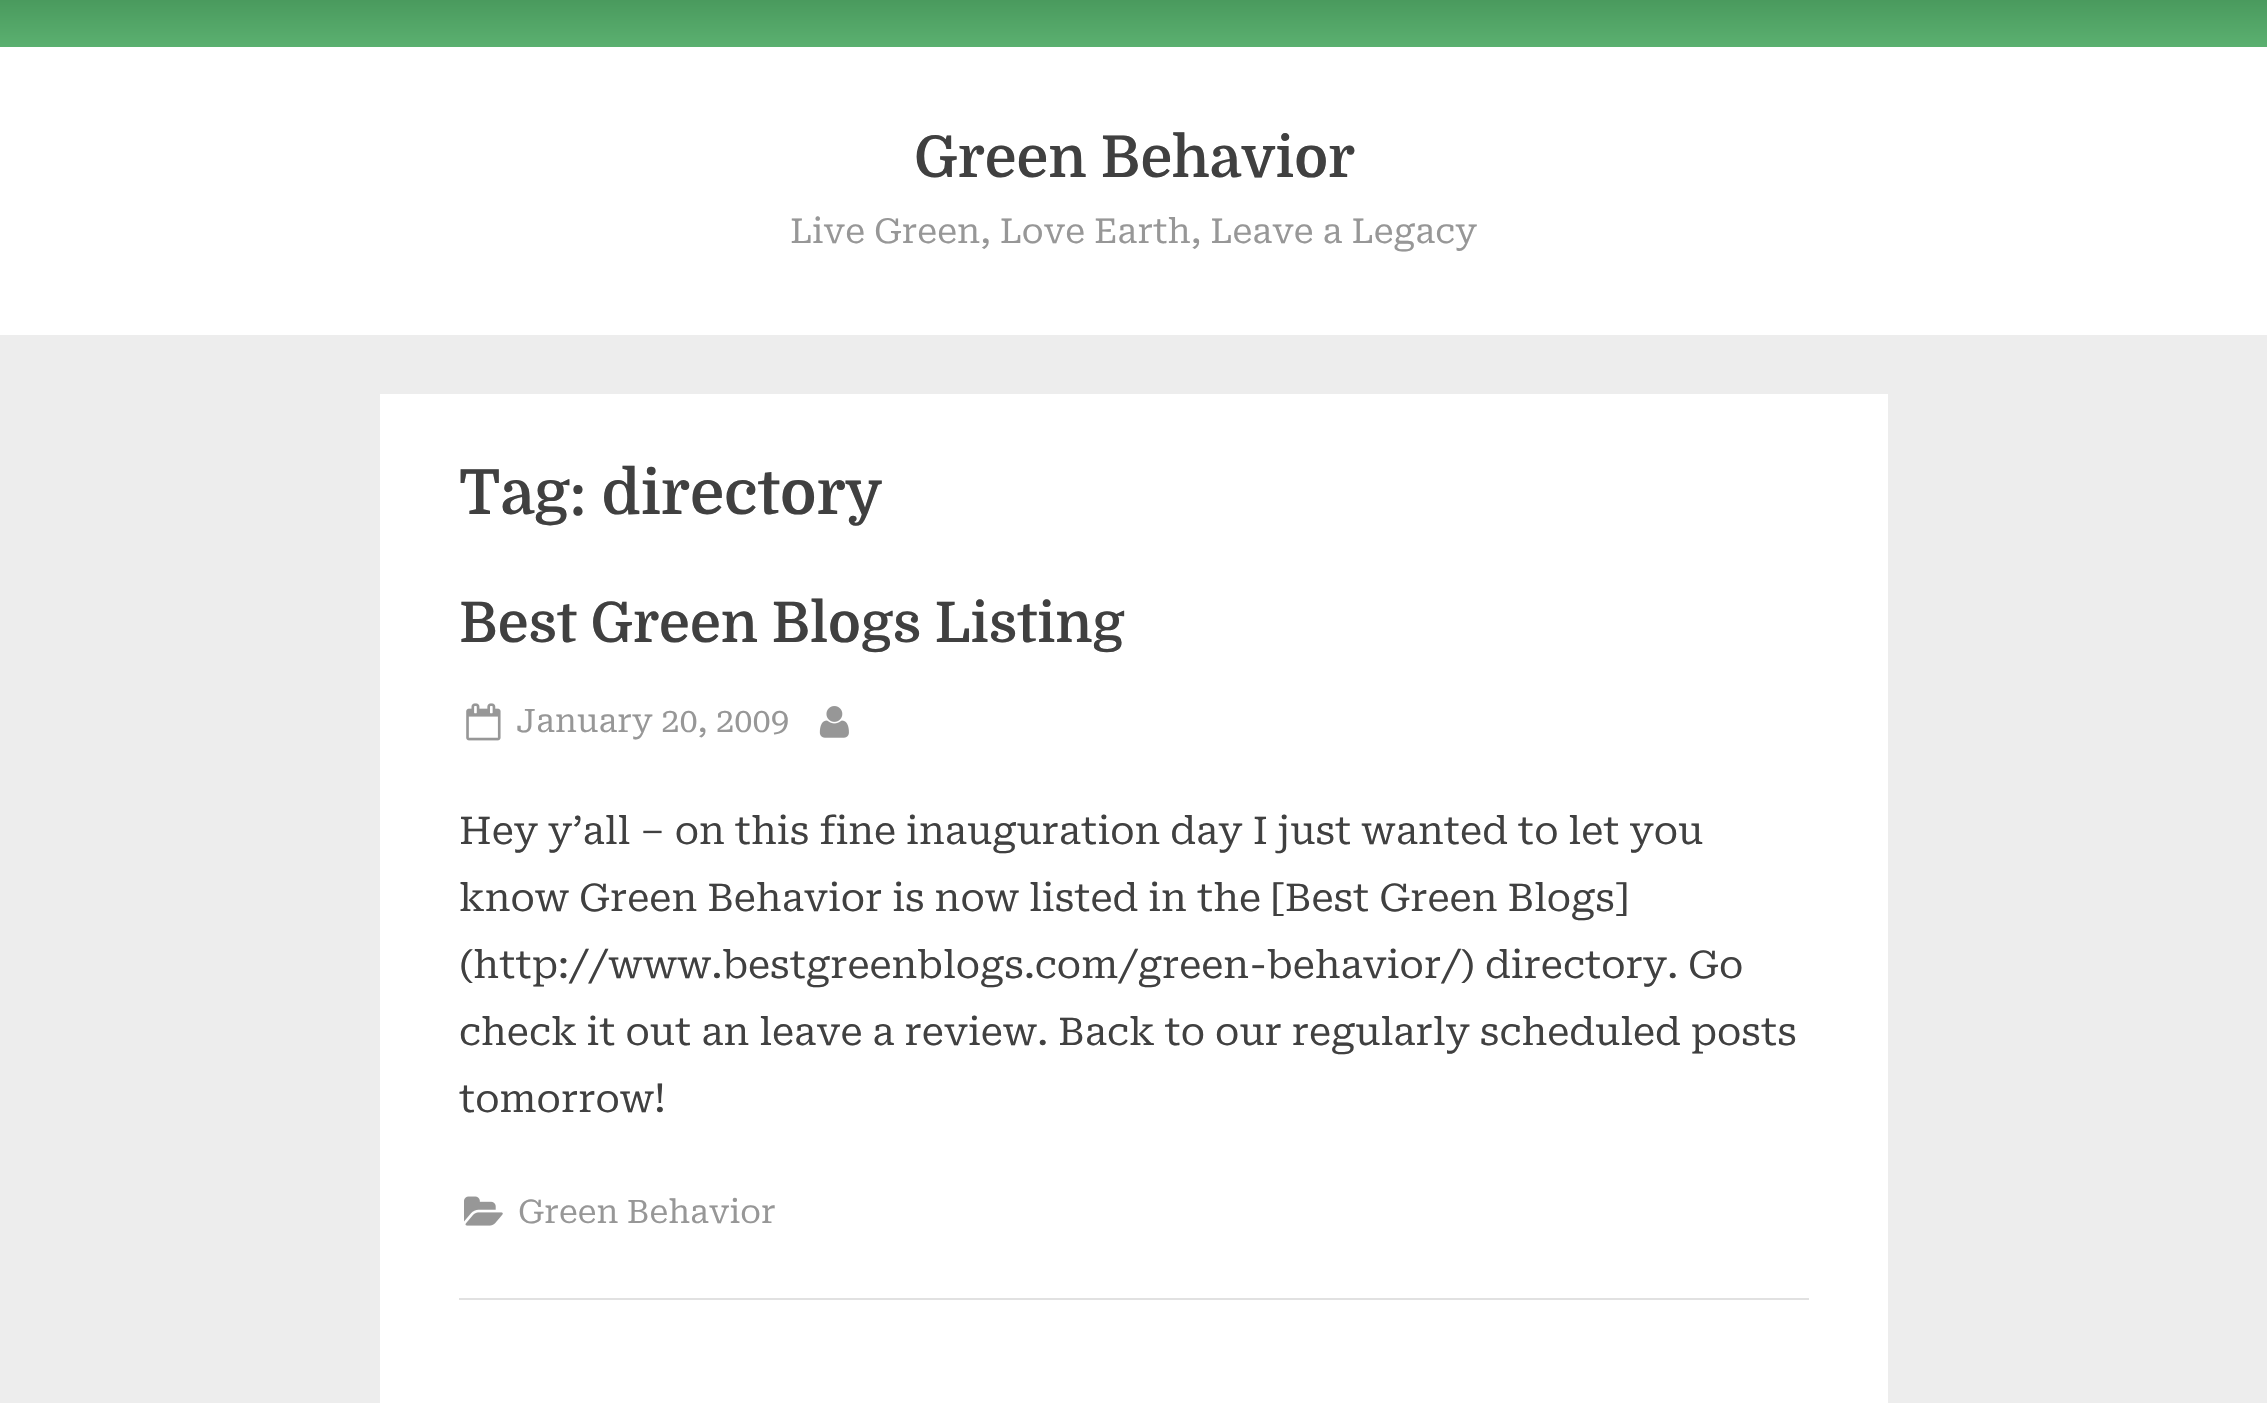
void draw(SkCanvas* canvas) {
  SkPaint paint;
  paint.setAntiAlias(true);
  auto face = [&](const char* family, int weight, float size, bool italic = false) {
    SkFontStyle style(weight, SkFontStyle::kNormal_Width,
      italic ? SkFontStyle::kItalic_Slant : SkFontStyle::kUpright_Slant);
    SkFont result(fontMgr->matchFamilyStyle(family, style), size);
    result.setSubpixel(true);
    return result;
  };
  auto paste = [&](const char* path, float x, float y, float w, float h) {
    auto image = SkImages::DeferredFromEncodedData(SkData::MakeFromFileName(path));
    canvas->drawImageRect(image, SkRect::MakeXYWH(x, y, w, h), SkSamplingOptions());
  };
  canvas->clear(0xffededed);
  {
    const SkColor colors[] = {0xff5bb070, 0xff3a864d};
    const float stops[] = {0, 1};
    const SkPoint ends[] = {{1134, 47}, {1134, -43}};
    paint.setShader(SkGradientShader::MakeLinear(ends, colors, stops, 2, SkTileMode::kClamp));
    paint.setAlpha(255);
  }
  canvas->drawRect(SkRect::MakeXYWH(0, 0, 2267, 47), paint);
  paint.setShader(nullptr);
  {
    const struct { float x, y, w, h; SkColor color; } items[] = {
      {0, 47, 2267, 288, 0xffffffff},
      {380, 394, 1508, 1009, 0xffffffff},
      {459, 1298, 1350, 2, 0xffe1e1e1},
    };
    for (auto [x, y, w, h, color] : items) {
      paint.setColor(color);
      canvas->drawRect(SkRect::MakeXYWH(x, y, w, h), paint);
    }
  }
  paste("img/1.png", 466, 703, 35, 38);
  paste("img/2.png", 819, 706, 30, 32);
  paste("img/3.png", 464, 1196, 39, 30);
  auto f0 = face("Domine", 600, 57.5f);
  paint.setColor(0xff404040);
  canvas->drawString("Green Behavior", 914, 177, f0, paint);
  auto f1 = face("Roboto Serif", 400, 34.4f);
  paint.setColor(0xff979797);
  canvas->drawString("Live Green, Love Earth, Leave a Legacy", 790, 243, f1, paint);
  auto f2 = face("Domine", 600, 62);
  paint.setColor(0xff404040);
  canvas->drawString("Tag: directory", 459, 514, f2, paint);
  auto f3 = face("Domine", 600, 55.8f);
  canvas->drawString("Best Green Blogs Listing", 459, 642, f3, paint);
  auto f4 = face("Roboto Serif", 400, 32.5f);
  paint.setColor(0xff979797);
  canvas->drawString("January 20, 2009", 516, 732, f4, paint);
  auto f5 = face("Roboto Serif", 400, 38.25f);
  paint.setColor(0xff404040);
  {
    const struct { const char* s; float x, y; } items[] = {
      {"Hey y’all – on this fine inauguration day I just wanted to let you", 459, 844},
      {"know Green Behavior is now listed in the [Best Green Blogs]", 459, 911},
      {"(http://www.bestgreenblogs.com/green-behavior/) directory. Go", 459, 978},
      {"check it out an leave a review. Back to our regularly scheduled posts", 459, 1045},
      {"tomorrow!", 459, 1112},
    };
    for (auto [s, x, y] : items) {
      canvas->drawString(s, x, y, f5, paint);
    }
  }
  paint.setColor(0xff979797);
  canvas->drawString("Green Behavior", 518, 1223, f4, paint);
}
